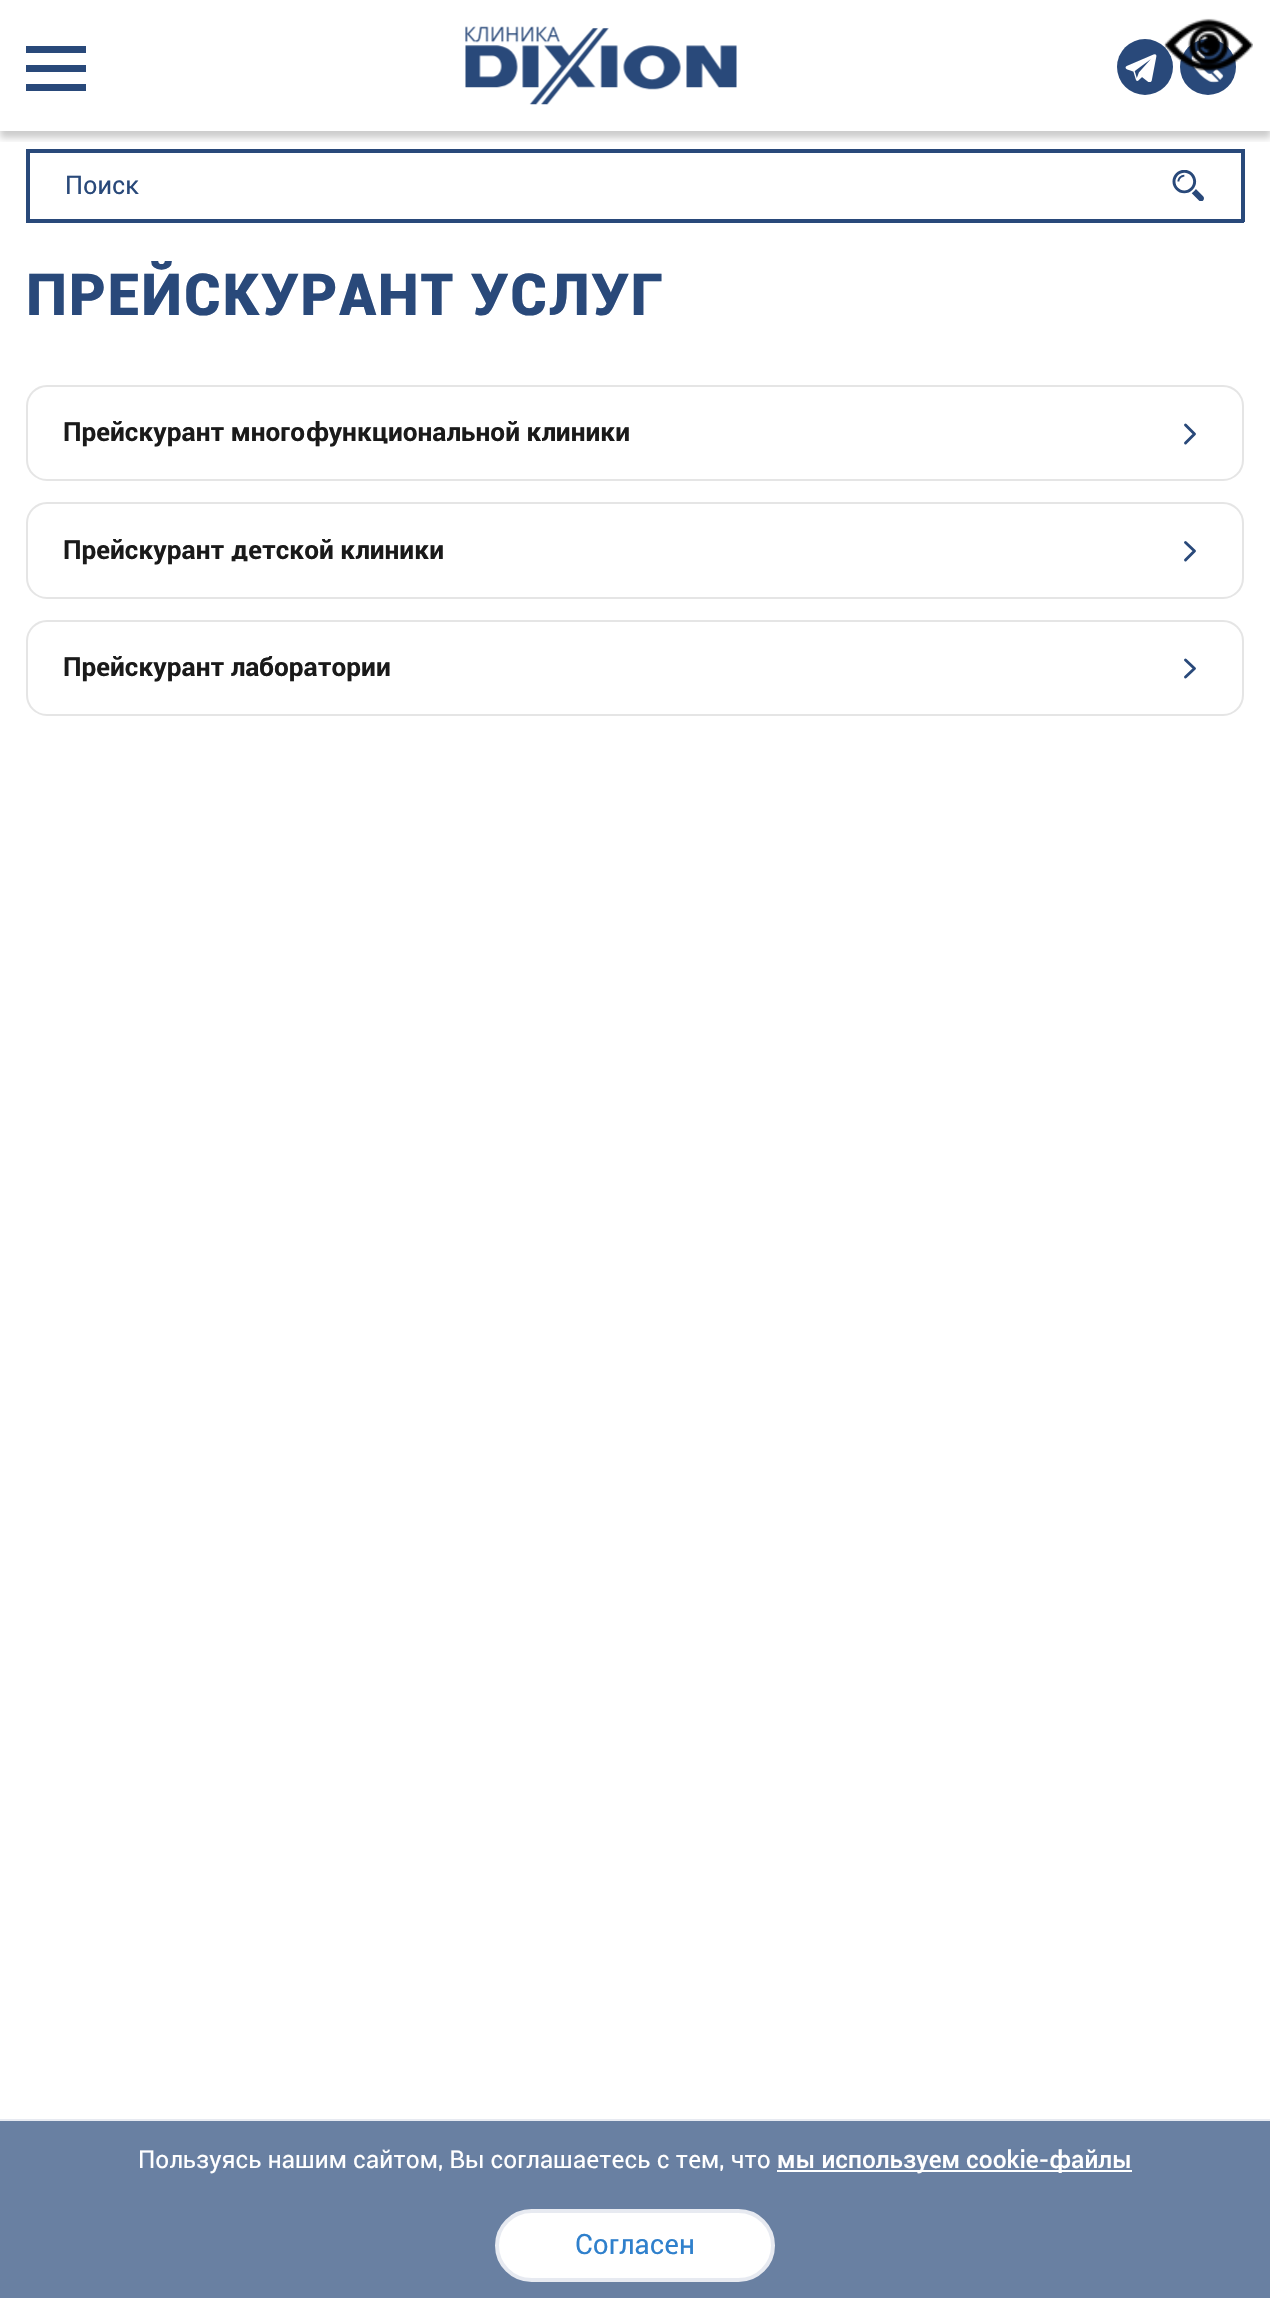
void draw(SkCanvas* canvas) {
  SkPaint paint;
  paint.setAntiAlias(true);
  auto face = [&](const char* family, int weight, float size, bool italic = false) {
    SkFontStyle style(weight, SkFontStyle::kNormal_Width,
      italic ? SkFontStyle::kItalic_Slant : SkFontStyle::kUpright_Slant);
    SkFont result(fontMgr->matchFamilyStyle(family, style), size);
    result.setSubpixel(true);
    return result;
  };
  auto writeSpaced = [&](const char* s, float x, float y, const SkFont& font, const SkPaint& ink, float letter, float word) {
    std::vector<SkGlyphID> glyphs(font.countText(s, strlen(s), SkTextEncoding::kUTF8));
    std::vector<float> xs(glyphs.size());
    font.textToGlyphs(s, strlen(s), SkTextEncoding::kUTF8, glyphs);
    font.getXPos(glyphs, xs, x);
    float extra = 0;
    for (size_t i = 0; i < glyphs.size(); i++) {
      xs[i] += extra;
      extra += letter + word * (glyphs[i] == font.unicharToGlyph(' '));
    }
    canvas->drawTextBlob(SkTextBlob::MakeFromPosHGlyphs(glyphs, xs, y, font), 0, 0, ink);
  };
  auto paste = [&](const char* path, float x, float y, float w, float h) {
    auto image = SkImages::DeferredFromEncodedData(SkData::MakeFromFileName(path));
    canvas->drawImageRect(image, SkRect::MakeXYWH(x, y, w, h), SkSamplingOptions());
  };
  auto shape = [&](const char* data, bool evenOdd = false) {
    SkPath result = *SkParsePath::FromSVGString(data);
    if (evenOdd) result.setFillType(SkPathFillType::kEvenOdd);
    return result;
  };
  canvas->clear(0xffffffff);
  {
    const struct { float x, y, w, h; SkColor color; } items[] = {
      {26, 149, 1218, 4, 0xff29497a},
      {26, 219, 1110, 4, 0xff29497a},
      {26, 149, 4, 73, 0xff29497a},
      {1241, 149, 4, 73, 0xff29497a},
    };
    for (auto [x, y, w, h, color] : items) {
      paint.setColor(color);
      canvas->drawRect(SkRect::MakeXYWH(x, y, w, h), paint);
    }
  }
  canvas->save();
  canvas->clipRect(SkRect::MakeXYWH(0, 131, 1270, 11));
  paint.setColor(0x33000000);
  paint.setMaskFilter(SkMaskFilter::MakeBlur(kNormal_SkBlurStyle, 3.5f));
  canvas->drawRect(SkRect::MakeXYWH(0, 7, 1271, 131), paint);
  paint.setMaskFilter(nullptr);
  canvas->restore();
  {
    const struct { float x, y, w, h; SkColor color; } items[] = {
      {26, 65, 60, 7, 0xff29497a},
      {26, 46, 60, 7, 0xff29497a},
      {26, 84, 60, 7, 0xff29497a},
    };
    for (auto [x, y, w, h, color] : items) {
      paint.setColor(color);
      canvas->drawRect(SkRect::MakeXYWH(x, y, w, h), paint);
    }
  }
  paste("img/1.png", 465, 26, 272, 79);
  canvas->drawCircle(1145, 67, 28, paint);
  paste("img/2.png", 1125, 54, 32, 28);
  canvas->drawCircle(1208, 67, 28, paint);
  paste("img/3.png", 1191, 50, 33, 33);
  paste("img/4.png", 1164, 18, 89, 54);
  canvas->drawRect(SkRect::MakeXYWH(1136, 219, 108, 4), paint);
  paste("img/5.png", 1172, 170, 32, 31);
  paint.setStroke(true);
  paint.setStrokeWidth(2);
  paint.setColor(0xffe5e5e5);
  canvas->drawRoundRect(SkRect::MakeXYWH(27, 386, 1216, 94), 20, 20, paint);
  paint.setStrokeWidth(2.9f);
  paint.setStrokeCap(SkPaint::kRound_Cap);
  paint.setStrokeJoin(SkPaint::kRound_Join);
  paint.setColor(0xff29497a);
  canvas->drawPath(shape("M1185.5 425L1194.5 434L1185.5 443"), paint);
  paint.setStrokeWidth(2);
  paint.setStrokeCap(SkPaint::kButt_Cap);
  paint.setStrokeJoin(SkPaint::kMiter_Join);
  paint.setColor(0xffe5e5e5);
  canvas->drawRoundRect(SkRect::MakeXYWH(27, 503, 1216, 95), 20, 20, paint);
  paint.setStrokeWidth(2.9f);
  paint.setStrokeCap(SkPaint::kRound_Cap);
  paint.setStrokeJoin(SkPaint::kRound_Join);
  paint.setColor(0xff29497a);
  canvas->drawPath(shape("M1185.5 542.5L1194.5 551L1185.5 560"), paint);
  paint.setStrokeWidth(2);
  paint.setStrokeCap(SkPaint::kButt_Cap);
  paint.setStrokeJoin(SkPaint::kMiter_Join);
  paint.setColor(0xffe5e5e5);
  canvas->drawRoundRect(SkRect::MakeXYWH(27, 621, 1216, 94), 20, 20, paint);
  paint.setStrokeWidth(2.9f);
  paint.setStrokeCap(SkPaint::kRound_Cap);
  paint.setStrokeJoin(SkPaint::kRound_Join);
  paint.setColor(0xff29497a);
  canvas->drawPath(shape("M1185.5 660L1194.5 668.5L1185.5 677"), paint);
  paint.setStroke(false);
  {
    const struct { float x, y, w, h; SkColor color; } items[] = {
      {0, 2121, 1270, 177, 0xff6980a2},
      {0, 2119, 1270, 2, 0xffe7eaf1},
      {777, 2170, 355, 2, 0xffffffff},
    };
    for (auto [x, y, w, h, color] : items) {
      paint.setColor(color);
      canvas->drawRect(SkRect::MakeXYWH(x, y, w, h), paint);
    }
  }
  canvas->drawRoundRect(SkRect::MakeXYWH(497, 2211, 276, 69), 34.5f, 34.5f, paint);
  paint.setStroke(true);
  paint.setStrokeWidth(4);
  paint.setStrokeCap(SkPaint::kButt_Cap);
  paint.setStrokeJoin(SkPaint::kMiter_Join);
  paint.setColor(0xffe7eaf1);
  canvas->drawRoundRect(SkRect::MakeXYWH(497, 2211, 276, 69), 34.5f, 34.5f, paint);
  auto f0 = face("Roboto", 400, 25.5f);
  paint.setStroke(false);
  paint.setColor(0xff29497a);
  canvas->drawString("Поиск", 65, 194, f0, paint);
  auto f1 = face("Roboto", 900, 58);
  writeSpaced("ПРЕЙСКУРАНТ УСЛУГ", 26, 315, f1, paint, 1.75f, 0);
  auto f2 = face("Roboto", 700, 26.25f);
  paint.setColor(0xff1a1a1a);
  {
    const struct { const char* s; float x, y; } items[] = {
      {"Прейскурант многофункциональной клиники", 63, 441},
      {"Прейскурант детской клиники", 63, 559},
      {"Прейскурант лаборатории", 63, 676},
    };
    for (auto [s, x, y] : items) {
      canvas->drawString(s, x, y, f2, paint);
    }
  }
  auto f3 = face("Roboto", 400, 24.5f);
  paint.setColor(0xffffffff);
  canvas->drawString("Пользуясь нашим сайтом, Вы соглашаетесь с тем, что", 138, 2168, f3, paint);
  auto f4 = face("Roboto", 500, 24.5f);
  canvas->drawString("мы используем cookie-файлы", 777, 2168, f4, paint);
  auto f5 = face("Roboto", 400, 28);
  paint.setColor(0xff2f80cc);
  canvas->drawString("Согласен", 575, 2254, f5, paint);
}
